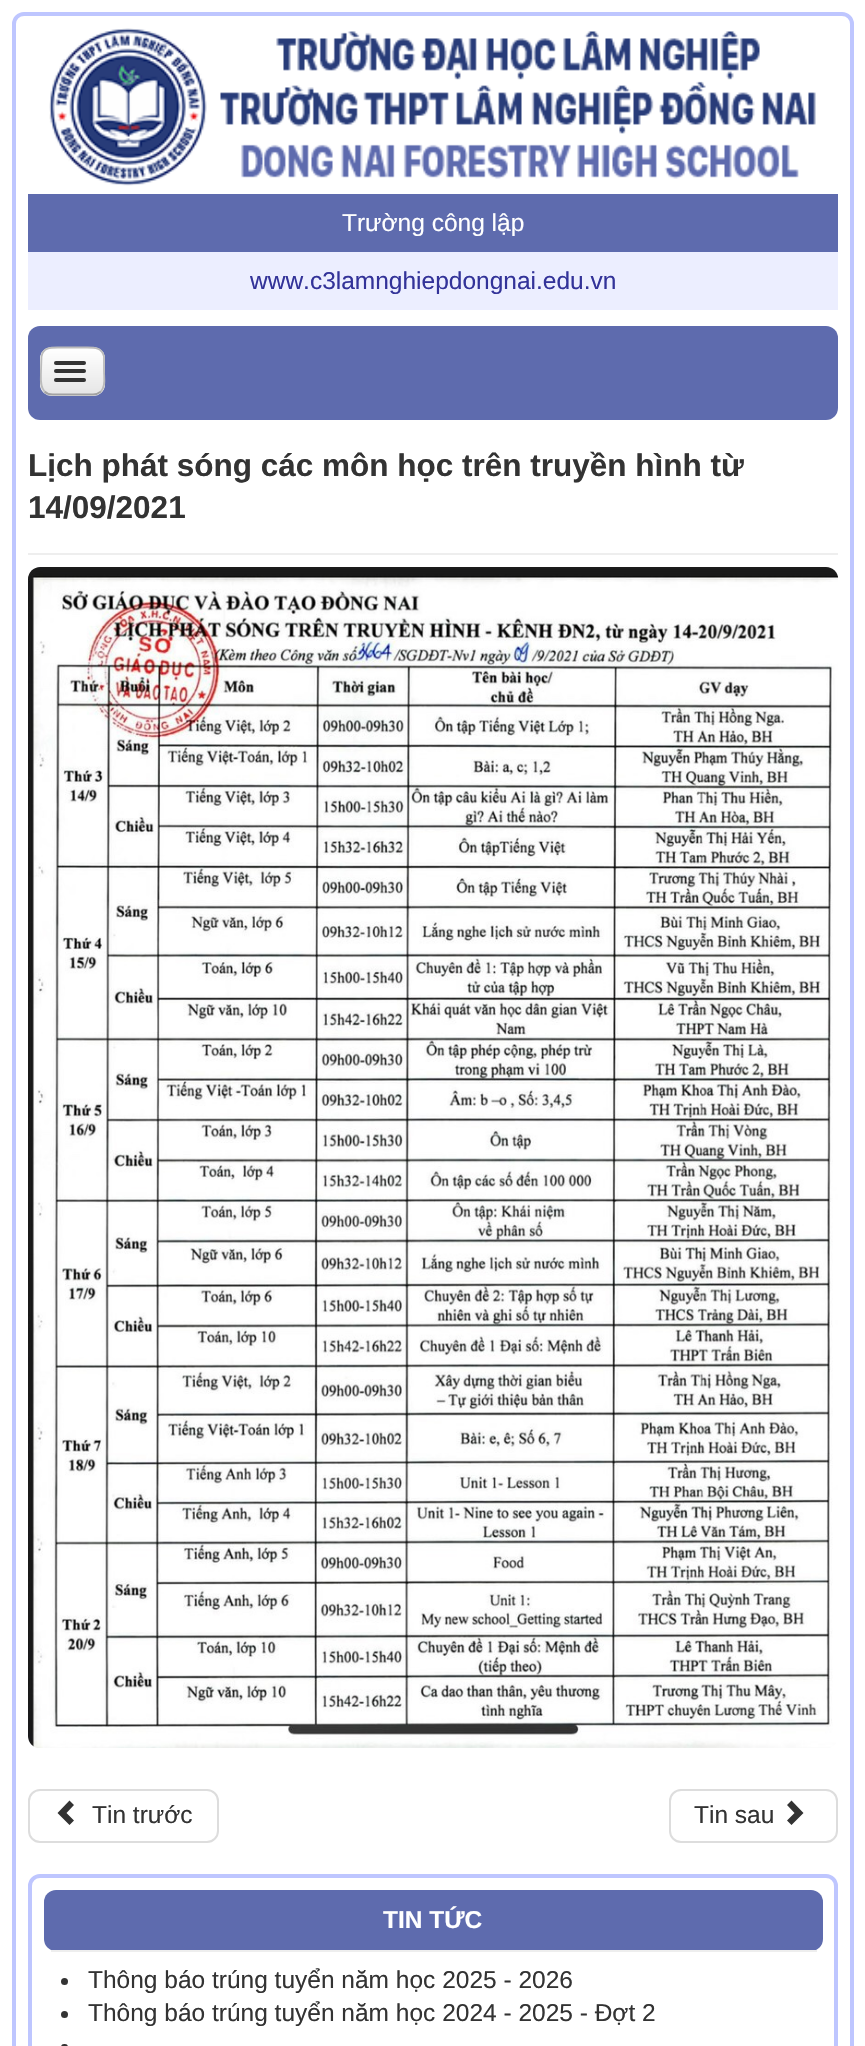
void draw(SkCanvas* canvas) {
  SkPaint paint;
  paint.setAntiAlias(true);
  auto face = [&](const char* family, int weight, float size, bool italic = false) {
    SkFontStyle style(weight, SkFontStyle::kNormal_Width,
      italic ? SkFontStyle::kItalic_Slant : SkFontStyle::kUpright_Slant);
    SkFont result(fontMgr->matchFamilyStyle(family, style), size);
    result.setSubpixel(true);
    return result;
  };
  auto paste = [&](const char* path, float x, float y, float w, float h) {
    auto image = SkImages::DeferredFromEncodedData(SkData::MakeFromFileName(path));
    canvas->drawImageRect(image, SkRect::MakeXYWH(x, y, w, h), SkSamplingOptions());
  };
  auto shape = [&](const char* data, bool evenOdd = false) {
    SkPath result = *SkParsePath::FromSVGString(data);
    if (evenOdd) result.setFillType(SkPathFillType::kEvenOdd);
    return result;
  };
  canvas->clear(0xffffffff);
  paint.setStroke(true);
  paint.setStrokeWidth(4);
  paint.setColor(0xffbec6ff);
  canvas->drawRoundRect(SkRect::MakeXYWH(14, 14, 838, 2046), 10, 10, paint);
  paste("img/1.png", 49, 28, 767, 158);
  paint.setStroke(false);
  paint.setColor(0xff5e6bae);
  canvas->drawRect(SkRect::MakeXYWH(28, 194, 810, 58), paint);
  paint.setColor(0xffeceeff);
  canvas->drawRect(SkRect::MakeXYWH(28, 252, 810, 58), paint);
  paint.setColor(0xff5e6bae);
  canvas->drawRoundRect(SkRect::MakeXYWH(28, 326, 810, 94), 12, 12, paint);
  paint.setColor(0xffededed);
  canvas->drawRoundRect(SkRect::MakeXYWH(40, 347, 65, 49), 12, 12, paint);
  canvas->save();
  canvas->clipPath(shape("M52 347H93C99.5 347 105 352.5 105 359V384C105 390.5 99.5 396 93 396H52C45.5 396 40 390.5 40 384V359C40 352.5 45.5 347 52 347Z"), true);
  {
    const SkColor colors[] = {0xffffffff, 0xffe6e6e6};
    const float stops[] = {0, 1};
    const SkPoint ends[] = {{73, 348}, {73, 394}};
    paint.setShader(SkGradientShader::MakeLinear(ends, colors, stops, 2, SkTileMode::kClamp));
    paint.setAlpha(255);
  }
  canvas->drawRect(SkRect::MakeXYWH(40, 348, 65, 46), paint);
  canvas->restore();
  paint.setStroke(true);
  paint.setStrokeWidth(1.8f);
  paint.setShader(nullptr);
  paint.setColor(0xffa2a2a2);
  canvas->drawPath(shape("M101 391.5C98.5 393.5 96 394.5 93 394.5H52.5C49.5 394.5 46.5 393.5 44.5 391.5"), paint);
  paint.setColor(0xffbbbbbb);
  canvas->drawPath(shape("M44.5 391.5C39.5 386 41 377.5 41 371L41.5 356.5C43 347 51.5 347.5 59 347.5H86C93.5 347.5 102 347 104 356.5V371C104 377.5 106 386 101 391.5"), paint);
  paint.setStroke(false);
  paint.setColor(0xff333333);
  canvas->drawRoundRect(SkRect::MakeXYWH(54, 361, 32, 4), 2, 2, paint);
  canvas->drawRoundRect(SkRect::MakeXYWH(54, 369, 32, 4), 2, 2, paint);
  canvas->drawRoundRect(SkRect::MakeXYWH(54, 378, 32, 4), 2, 2, paint);
  paint.setColor(0xffeeeeee);
  canvas->drawRect(SkRect::MakeXYWH(28, 553, 810, 2), paint);
  paste("img/2.png", 28, 567, 811, 1181);
  paint.setStroke(true);
  paint.setStrokeWidth(2);
  paint.setColor(0xffdddddd);
  canvas->drawRoundRect(SkRect::MakeXYWH(29, 1790, 189, 52), 11, 11, paint);
  paint.setStroke(false);
  paint.setColor(0xff333333);
  canvas->drawPath(shape("M69.5 1825L57.5 1813L69.5 1800.5L74 1805L66.5 1813L74 1820.5Z"), paint);
  paint.setStroke(true);
  paint.setColor(0xffdddddd);
  canvas->drawRoundRect(SkRect::MakeXYWH(670, 1790, 167, 52), 11, 11, paint);
  paint.setStroke(false);
  paint.setColor(0xff333333);
  canvas->drawPath(shape("M791.5 1800.5L803.5 1813L791.5 1825L787 1820.5L794.5 1813L787 1805Z"), paint);
  paint.setStroke(true);
  paint.setStrokeWidth(4);
  paint.setColor(0xffbec6ff);
  canvas->drawRoundRect(SkRect::MakeXYWH(30, 1876, 806, 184), 10, 10, paint);
  paint.setStroke(false);
  paint.setColor(0xff5e6bae);
  canvas->drawRoundRect(SkRect::MakeXYWH(44, 1890, 779, 61), 12, 12, paint);
  paint.setColor(0xffeeeeee);
  canvas->drawRect(SkRect::MakeXYWH(51, 1950, 766, 2), paint);
  paint.setColor(0xff333333);
  canvas->drawCircle(64.5f, 1981.5f, 3.5f, paint);
  canvas->drawCircle(64.5f, 2014.5f, 3.5f, paint);
  canvas->drawRoundRect(SkRect::MakeXYWH(61, 2044, 7, 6), 3.5f, 3.5f, paint);
  auto f0 = face("Liberation Sans", 400, 24.5f);
  paint.setColor(0xffffffff);
  canvas->drawString("Trường công lập", 342, 231, f0, paint);
  paint.setColor(0xff333399);
  canvas->drawString("www.c3lamnghiepdongnai.edu.vn", 250, 289, f0, paint);
  auto f1 = face("Liberation Sans", 700, 31.5f);
  paint.setColor(0xff333333);
  canvas->drawString("Lịch phát sóng các môn học trên truyền hình từ", 28, 476, f1, paint);
  canvas->drawString("14/09/2021", 28, 518, f1, paint);
  canvas->drawString("Tin trước", 92, 1823, f0, paint);
  canvas->drawString("Tin sau", 694, 1823, f0, paint);
  auto f2 = face("Liberation Sans", 700, 24.5f);
  paint.setColor(0xffffffff);
  canvas->drawString("TIN TỨC", 383, 1928, f2, paint);
  paint.setColor(0xff333333);
  canvas->drawString("Thông báo trúng tuyển năm học 2025 - 2026", 88, 1988, f0, paint);
  canvas->drawString("Thông báo trúng tuyển năm học 2024 - 2025 - Đợt 2", 88, 2021, f0, paint);
}
